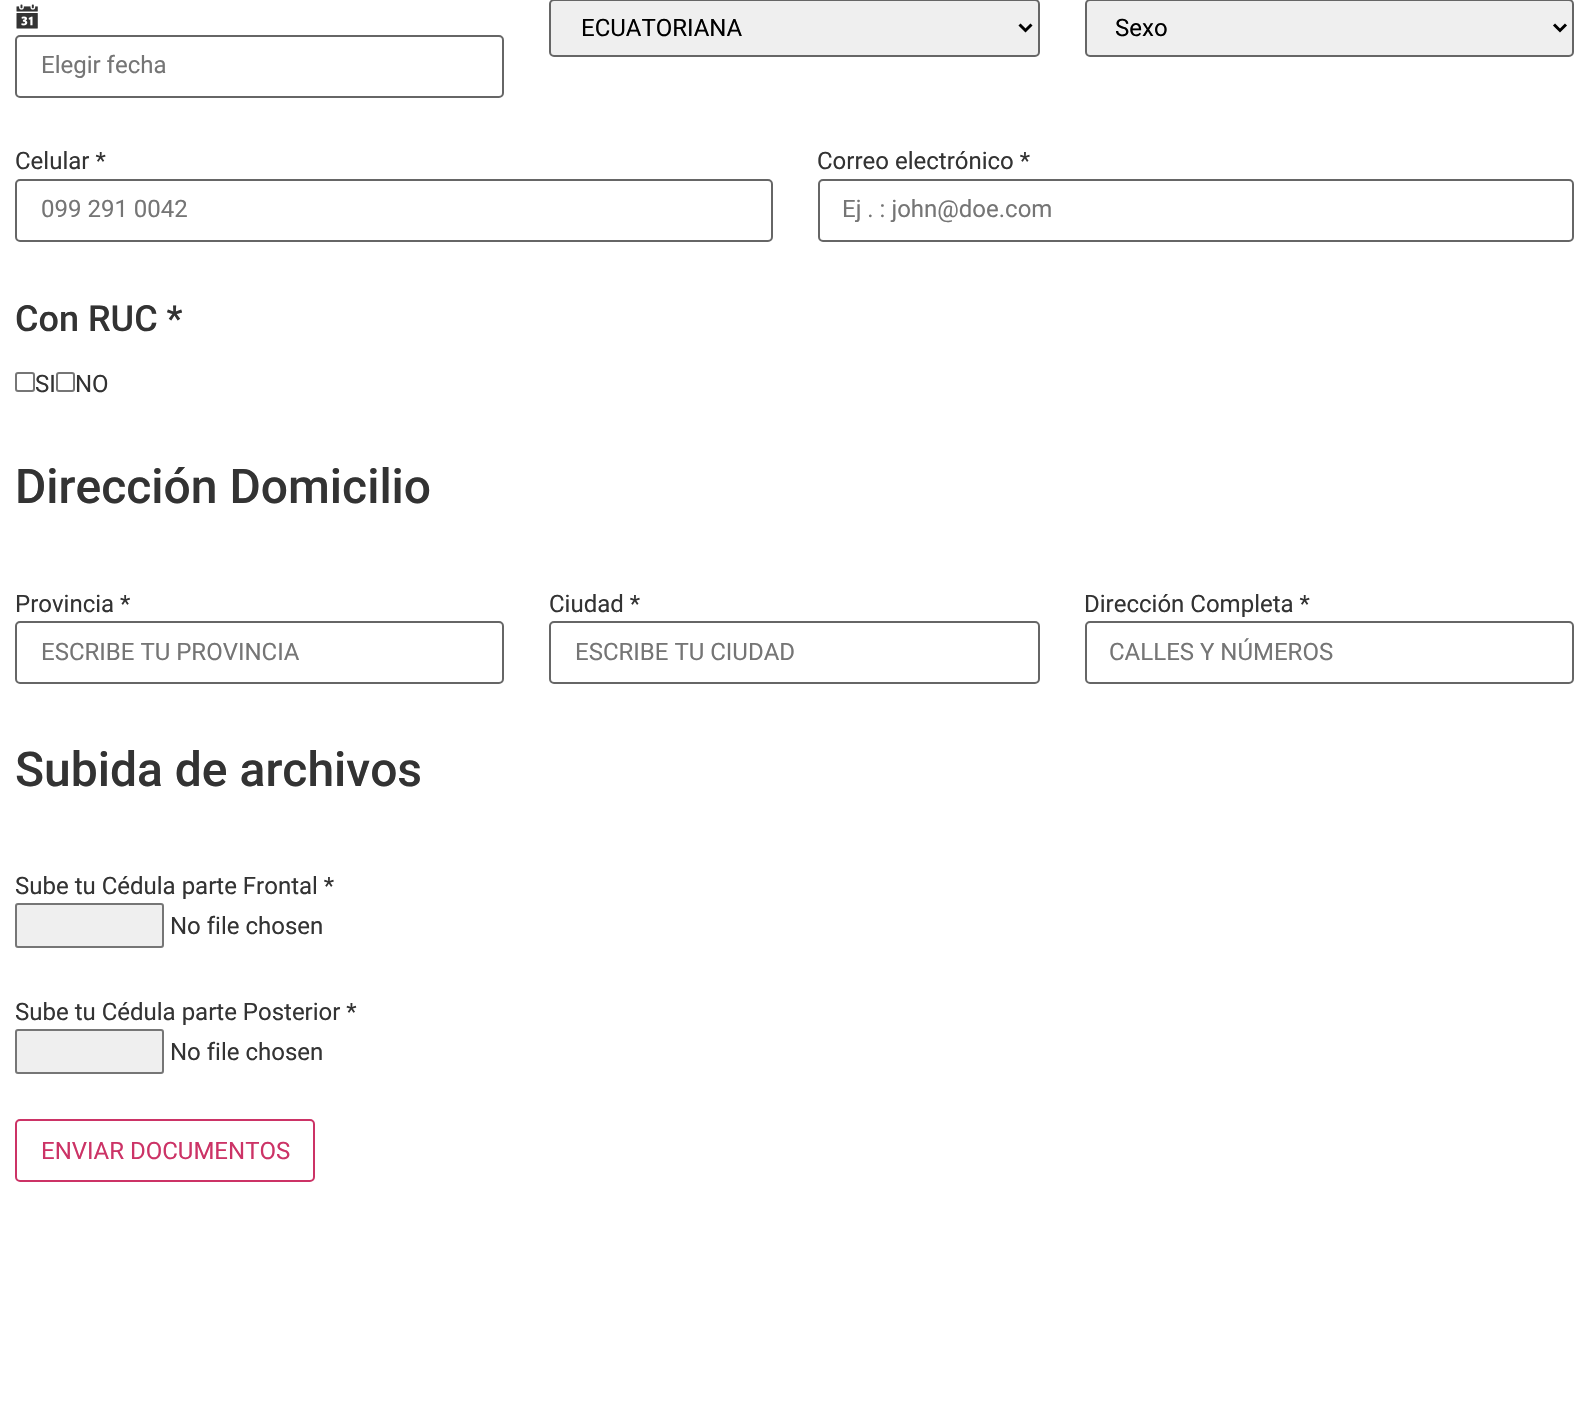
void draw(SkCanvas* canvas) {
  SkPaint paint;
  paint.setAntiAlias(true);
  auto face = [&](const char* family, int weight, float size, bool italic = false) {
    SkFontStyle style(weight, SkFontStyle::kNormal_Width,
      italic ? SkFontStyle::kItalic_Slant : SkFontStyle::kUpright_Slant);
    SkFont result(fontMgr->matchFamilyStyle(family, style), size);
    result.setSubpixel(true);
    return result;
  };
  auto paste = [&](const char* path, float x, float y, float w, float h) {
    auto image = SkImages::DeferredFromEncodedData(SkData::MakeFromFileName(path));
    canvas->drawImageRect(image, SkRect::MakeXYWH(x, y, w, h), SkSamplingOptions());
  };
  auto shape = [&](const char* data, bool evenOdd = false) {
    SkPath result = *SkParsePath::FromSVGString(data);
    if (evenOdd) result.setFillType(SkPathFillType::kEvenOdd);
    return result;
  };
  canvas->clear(0xffffffff);
  paint.setColor(0xffefefef);
  canvas->drawRoundRect(SkRect::MakeXYWH(550, 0, 489, 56), 4, 4, paint);
  paint.setStroke(true);
  paint.setStrokeWidth(2);
  paint.setColor(0xff666666);
  canvas->drawRoundRect(SkRect::MakeXYWH(550, 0, 489, 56), 4, 4, paint);
  paint.setStrokeWidth(3);
  paint.setColor(0xff000000);
  canvas->drawPath(shape("M1019.5 24.5L1025.5 30.5L1031.5 24.5"), paint);
  paint.setStroke(false);
  paint.setColor(0xffefefef);
  canvas->drawRoundRect(SkRect::MakeXYWH(1086, 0, 487, 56), 4, 4, paint);
  paint.setStroke(true);
  paint.setStrokeWidth(2);
  paint.setColor(0xff666666);
  canvas->drawRoundRect(SkRect::MakeXYWH(1086, 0, 487, 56), 4, 4, paint);
  paint.setStrokeWidth(3);
  paint.setColor(0xff000000);
  canvas->drawPath(shape("M1554 24.5L1560 30.5L1566 24.5"), paint);
  paste("img/1.png", 16, 4, 22, 25);
  paint.setStrokeWidth(2);
  paint.setColor(0xff666666);
  canvas->drawRoundRect(SkRect::MakeXYWH(16, 36, 487, 61), 4, 4, paint);
  canvas->drawRoundRect(SkRect::MakeXYWH(16, 180, 756, 61), 4, 4, paint);
  canvas->drawRoundRect(SkRect::MakeXYWH(819, 180, 754, 61), 4, 4, paint);
  paint.setColor(0xff767676);
  canvas->drawRoundRect(SkRect::MakeXYWH(16, 373, 18, 18), 2, 2, paint);
  canvas->drawRoundRect(SkRect::MakeXYWH(57, 373, 17, 18), 2, 2, paint);
  paint.setColor(0xff666666);
  canvas->drawRoundRect(SkRect::MakeXYWH(16, 622, 487, 61), 4, 4, paint);
  canvas->drawRoundRect(SkRect::MakeXYWH(550, 622, 489, 61), 4, 4, paint);
  canvas->drawRoundRect(SkRect::MakeXYWH(1086, 622, 487, 61), 4, 4, paint);
  paint.setStroke(false);
  paint.setColor(0xffefefef);
  canvas->drawRoundRect(SkRect::MakeXYWH(16, 904, 147, 43), 2, 2, paint);
  paint.setStroke(true);
  paint.setColor(0xff767676);
  canvas->drawRoundRect(SkRect::MakeXYWH(16, 904, 147, 43), 2, 2, paint);
  paint.setStroke(false);
  paint.setColor(0xffefefef);
  canvas->drawRoundRect(SkRect::MakeXYWH(16, 1030, 147, 43), 2, 2, paint);
  paint.setStroke(true);
  paint.setColor(0xff767676);
  canvas->drawRoundRect(SkRect::MakeXYWH(16, 1030, 147, 43), 2, 2, paint);
  paint.setColor(0xffcc3366);
  canvas->drawRoundRect(SkRect::MakeXYWH(16, 1120, 298, 61), 4, 4, paint);
  auto f0 = face("Roboto", 400, 24);
  paint.setStroke(false);
  paint.setColor(0xff000000);
  canvas->drawString("ECUATORIANA", 581, 36, f0, paint);
  canvas->drawString("Sexo", 1115, 36, f0, paint);
  paint.setColor(0xff757575);
  canvas->drawString("Elegir fecha", 41, 73, f0, paint);
  paint.setColor(0xff333333);
  canvas->drawString("Celular *", 15, 169, f0, paint);
  paint.setColor(0xff757575);
  canvas->drawString("099 291 0042", 41, 217, f0, paint);
  paint.setColor(0xff333333);
  canvas->drawString("Correo electrónico *", 817, 169, f0, paint);
  paint.setColor(0xff757575);
  canvas->drawString("Ej . : john@doe.com", 842, 217, f0, paint);
  auto f1 = face("Roboto", 500, 36);
  paint.setColor(0xff333333);
  canvas->drawString("Con RUC *", 15, 331, f1, paint);
  canvas->drawString("SI", 35, 392, f0, paint);
  canvas->drawString("NO", 75, 392, f0, paint);
  auto f2 = face("Roboto", 500, 48);
  canvas->drawString("Dirección Domicilio", 15, 503, f2, paint);
  canvas->drawString("Provincia *", 15, 612, f0, paint);
  paint.setColor(0xff757575);
  canvas->drawString("ESCRIBE TU PROVINCIA", 41, 660, f0, paint);
  paint.setColor(0xff333333);
  canvas->drawString("Ciudad *", 549, 612, f0, paint);
  paint.setColor(0xff757575);
  canvas->drawString("ESCRIBE TU CIUDAD", 575, 660, f0, paint);
  paint.setColor(0xff333333);
  canvas->drawString("Dirección Completa *", 1084, 612, f0, paint);
  paint.setColor(0xff757575);
  canvas->drawString("CALLES Y NÚMEROS", 1109, 660, f0, paint);
  paint.setColor(0xff333333);
  canvas->drawString("Subida de archivos", 15, 786, f2, paint);
  {
    const struct { const char* s; float x, y; } items[] = {
      {"Sube tu Cédula parte Frontal *", 15, 894},
      {"No file chosen", 170, 934},
      {"Sube tu Cédula parte Posterior *", 15, 1020},
      {"No file chosen", 170, 1060},
    };
    for (auto [s, x, y] : items) {
      canvas->drawString(s, x, y, f0, paint);
    }
  }
  paint.setColor(0xffcc3366);
  canvas->drawString("ENVIAR DOCUMENTOS", 41, 1159, f0, paint);
}
